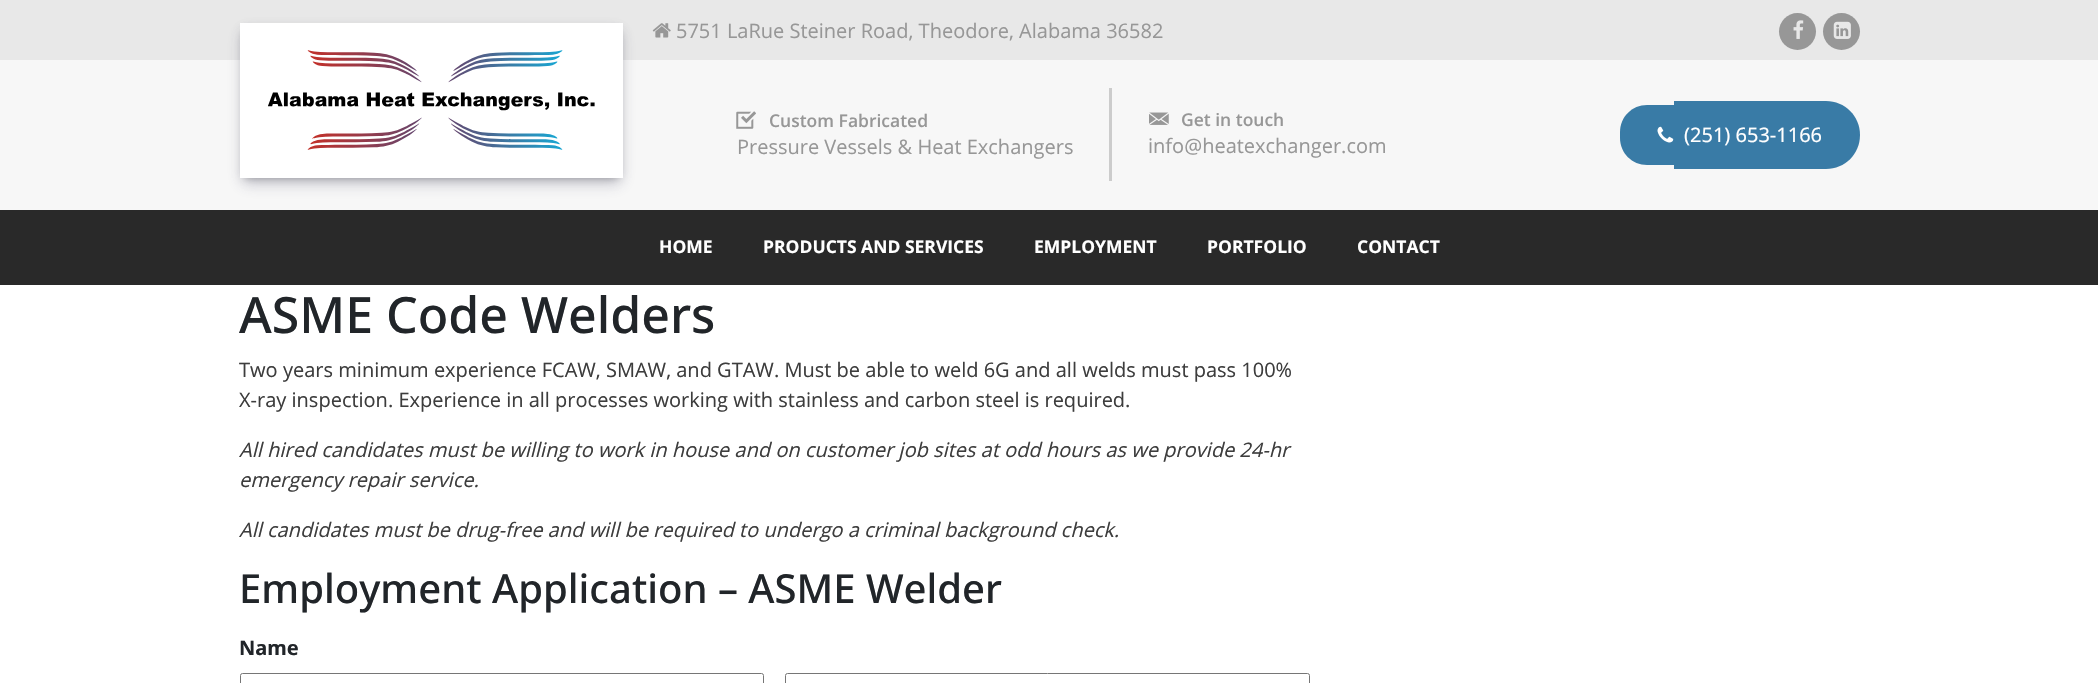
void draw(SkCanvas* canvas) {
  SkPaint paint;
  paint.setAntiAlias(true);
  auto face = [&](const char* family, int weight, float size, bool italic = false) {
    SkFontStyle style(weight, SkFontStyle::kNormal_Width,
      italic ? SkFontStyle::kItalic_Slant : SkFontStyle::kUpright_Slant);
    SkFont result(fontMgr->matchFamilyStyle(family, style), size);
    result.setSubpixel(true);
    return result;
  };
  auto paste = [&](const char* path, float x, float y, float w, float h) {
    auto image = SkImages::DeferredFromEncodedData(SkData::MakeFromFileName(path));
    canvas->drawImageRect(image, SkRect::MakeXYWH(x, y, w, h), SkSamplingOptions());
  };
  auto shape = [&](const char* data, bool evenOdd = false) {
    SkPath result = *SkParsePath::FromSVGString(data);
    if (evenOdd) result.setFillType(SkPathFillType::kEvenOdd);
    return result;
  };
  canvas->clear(0xffffffff);
  paint.setColor(0xffe8e8e8);
  canvas->drawRect(SkRect::MakeXYWH(0, 0, 2098, 60), paint);
  paste("img/1.png", 652, 23, 19, 15);
  paint.setColor(0xff979797);
  canvas->drawCircle(1797.5f, 31.5f, 18.5f, paint);
  paste("img/2.png", 1793, 20, 11, 19);
  canvas->drawCircle(1841.5f, 31.5f, 18.5f, paint);
  paste("img/3.png", 1833, 21, 18, 18);
  paint.setColor(0xfff7f7f7);
  canvas->drawRect(SkRect::MakeXYWH(0, 60, 2098, 150), paint);
  paint.setColor(0x4032325d);
  paint.setMaskFilter(SkMaskFilter::MakeBlur(kNormal_SkBlurStyle, 7.5f));
  canvas->drawRect(SkRect::MakeXYWH(243, 33, 377, 150), paint);
  paint.setMaskFilter(nullptr);
  paint.setColor(0x4d000000);
  paint.setMaskFilter(SkMaskFilter::MakeBlur(kNormal_SkBlurStyle, 4.5f));
  canvas->drawRect(SkRect::MakeXYWH(244, 30, 375, 148), paint);
  paint.setMaskFilter(nullptr);
  paint.setColor(0xffffffff);
  canvas->drawRect(SkRect::MakeXYWH(240, 23, 383, 155), paint);
  paste("img/4.png", 268, 50, 327, 100);
  paste("img/5.png", 736, 111, 20, 18);
  paint.setColor(0xffcccccc);
  canvas->drawRect(SkRect::MakeXYWH(1109, 88, 3, 93), paint);
  paste("img/6.png", 1149, 112, 20, 13);
  paint.setColor(0xff397ba6);
  canvas->drawPath(shape("M1647 105H1674V165H1647C1632 165 1620 153 1620 138V132C1620 117 1632 105 1647 105Z"), paint);
  canvas->drawPath(shape("M1674 101H1826C1845 101 1860 116 1860 135C1860 154 1845 169 1826 169H1674Z"), paint);
  paste("img/7.png", 1657, 126, 17, 17);
  paint.setColor(0xff292929);
  canvas->drawRect(SkRect::MakeXYWH(0, 210, 2098, 75), paint);
  paint.setStroke(true);
  paint.setStrokeWidth(1);
  paint.setColor(0xff767676);
  canvas->drawRoundRect(SkRect::MakeXYWH(240.5f, 673.5f, 523, 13), 2, 2, paint);
  canvas->drawRoundRect(SkRect::MakeXYWH(785.5f, 673.5f, 524, 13), 2, 2, paint);
  auto f0 = face("Open Sans", 400, 20);
  paint.setStroke(false);
  paint.setColor(0xff979797);
  canvas->drawString("5751 LaRue Steiner Road, Theodore, Alabama 36582", 676, 38, f0, paint);
  auto f1 = face("Open Sans", 600, 17.5f);
  canvas->drawString("Custom Fabricated", 769, 127, f1, paint);
  canvas->drawString("Pressure Vessels & Heat Exchangers", 737, 154, f0, paint);
  canvas->drawString("Get in touch", 1181, 126, f1, paint);
  canvas->drawString("info@heatexchanger.com", 1148, 153, f0, paint);
  auto f2 = face("Noto Sans", 400, 20);
  paint.setColor(0xffffffff);
  canvas->drawString("(251) 653-1166", 1684, 142, f2, paint);
  auto f3 = face("Open Sans", 700, 17.5f);
  {
    const struct { const char* s; float x, y; } items[] = {
      {"HOME", 659, 253},
      {"PRODUCTS AND SERVICES", 763, 253},
      {"EMPLOYMENT", 1034, 253},
      {"PORTFOLIO", 1207, 253},
      {"CONTACT", 1357, 253},
    };
    for (auto [s, x, y] : items) {
      canvas->drawString(s, x, y, f3, paint);
    }
  }
  auto f4 = face("Noto Sans", 500, 50);
  paint.setColor(0xff212529);
  canvas->drawString("ASME Code Welders", 239, 333, f4, paint);
  paint.setColor(0xff3d3d3d);
  canvas->drawString("Two years minimum experience FCAW, SMAW, and GTAW. Must be able to weld 6G and all welds must pass 100%", 239, 377, f0, paint);
  canvas->drawString("X-ray inspection. Experience in all processes working with stainless and carbon steel is required.", 239, 407, f0, paint);
  auto f5 = face("Open Sans", 400, 20, true);
  {
    const struct { const char* s; float x, y; } items[] = {
      {"All hired candidates must be willing to work in house and on customer job sites at odd hours as we provide 24-hr", 239, 457},
      {"emergency repair service.", 239, 487},
      {"All candidates must be drug-free and will be required to undergo a criminal background check.", 239, 537},
    };
    for (auto [s, x, y] : items) {
      canvas->drawString(s, x, y, f5, paint);
    }
  }
  auto f6 = face("Noto Sans", 500, 40);
  paint.setColor(0xff212529);
  canvas->drawString("Employment Application – ASME Welder", 239, 603, f6, paint);
  auto f7 = face("Noto Sans", 700, 20);
  canvas->drawString("Name", 239, 655, f7, paint);
}
